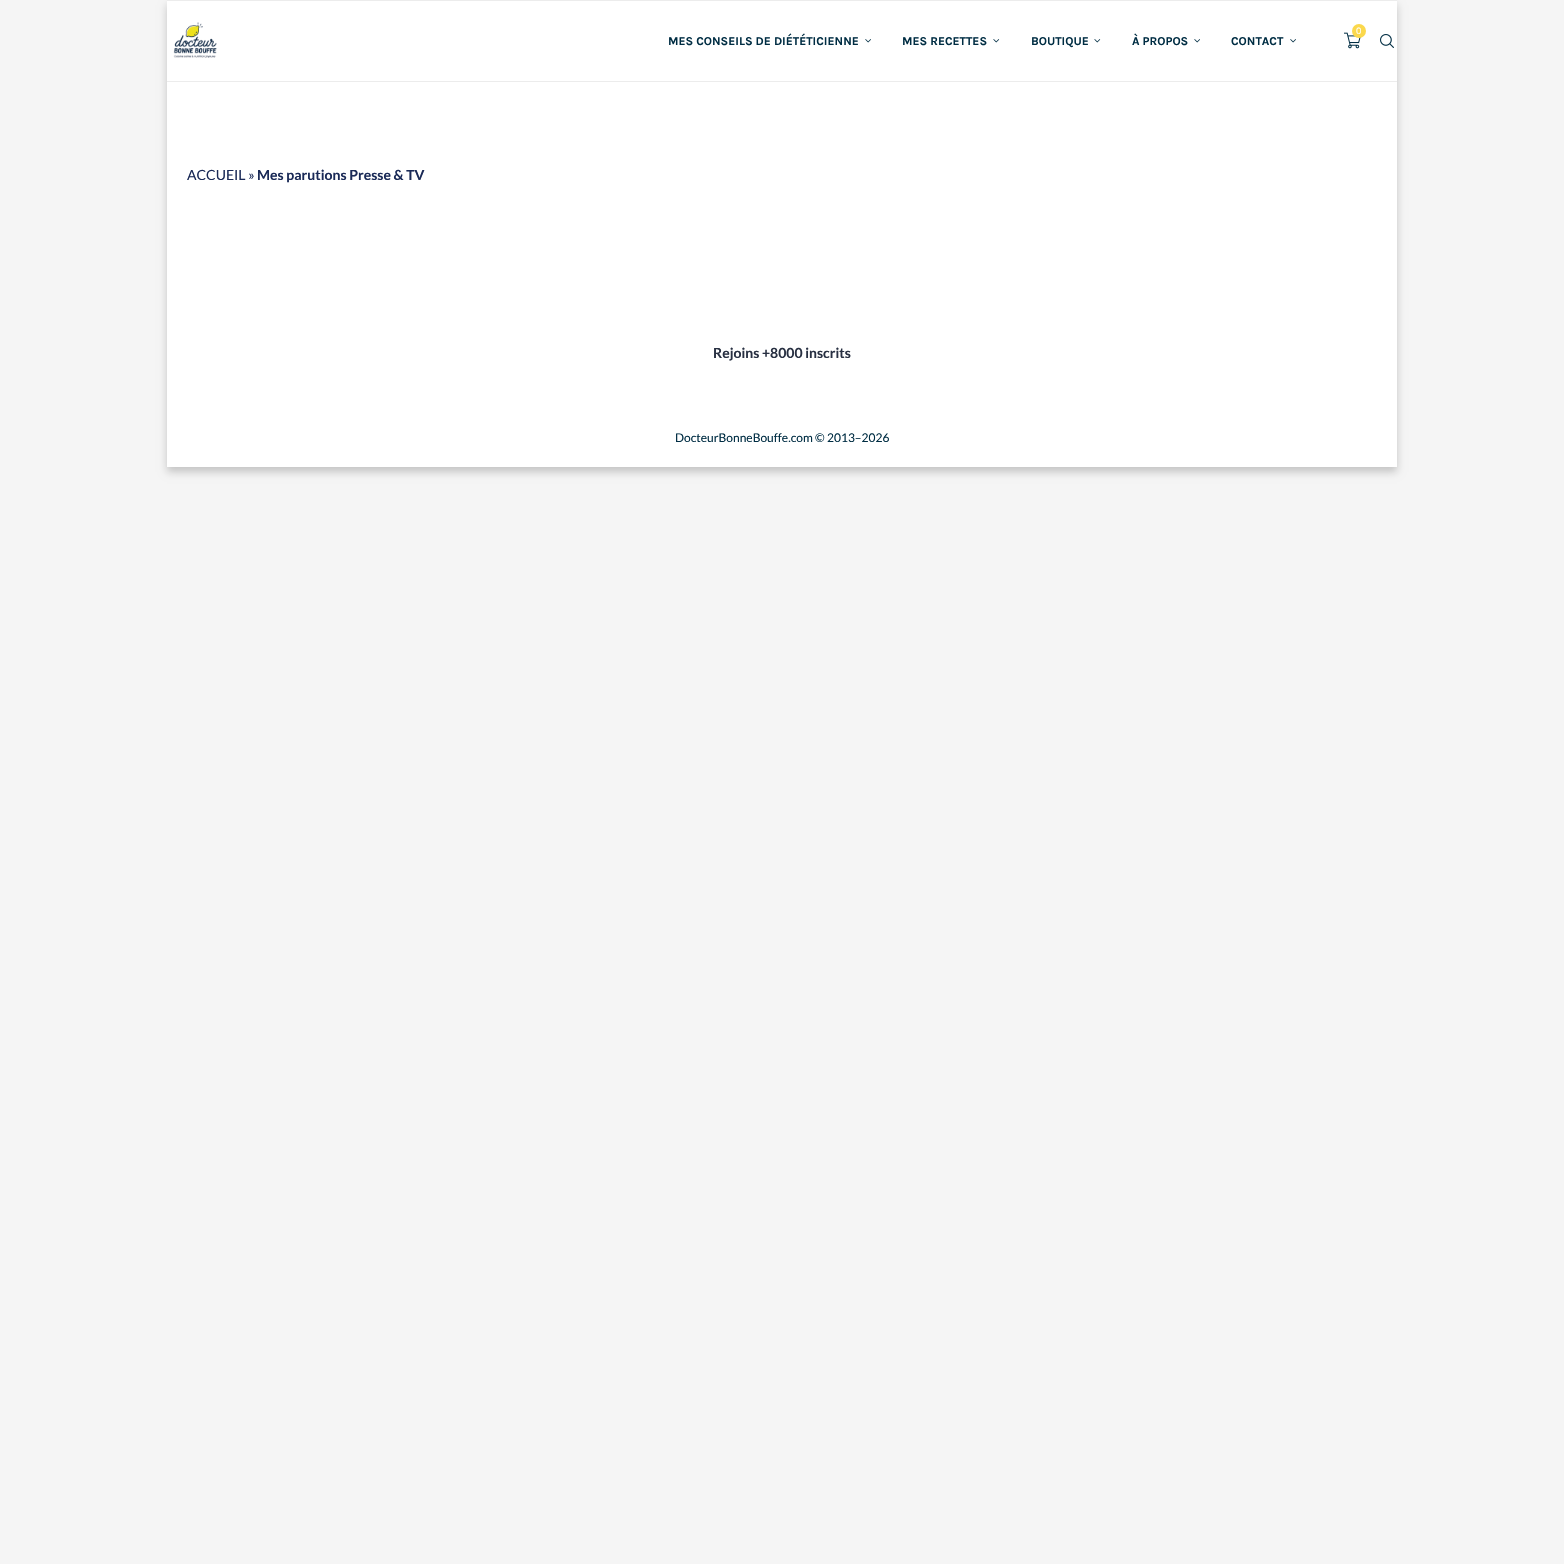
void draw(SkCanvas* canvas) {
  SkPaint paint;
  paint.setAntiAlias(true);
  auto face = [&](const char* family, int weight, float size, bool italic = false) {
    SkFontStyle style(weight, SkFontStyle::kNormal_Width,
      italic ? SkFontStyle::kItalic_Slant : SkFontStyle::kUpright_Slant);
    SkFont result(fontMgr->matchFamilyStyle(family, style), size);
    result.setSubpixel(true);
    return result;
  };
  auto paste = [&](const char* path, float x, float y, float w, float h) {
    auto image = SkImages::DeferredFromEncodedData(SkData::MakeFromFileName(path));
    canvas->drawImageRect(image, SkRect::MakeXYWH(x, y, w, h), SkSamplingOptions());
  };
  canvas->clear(0xfff5f5f5);
  paint.setColor(0x33000000);
  paint.setMaskFilter(SkMaskFilter::MakeBlur(kNormal_SkBlurStyle, 4));
  canvas->drawRect(SkRect::MakeXYWH(167, 5, 1230, 467), paint);
  paint.setMaskFilter(nullptr);
  {
    const struct { float x, y, w, h; SkColor color; } items[] = {
      {167, 1, 1230, 466, 0xffffffff},
      {167, 0, 1230, 1, 0xffececec},
      {167, 81, 1230, 1, 0xffececec},
    };
    for (auto [x, y, w, h, color] : items) {
      paint.setColor(color);
      canvas->drawRect(SkRect::MakeXYWH(x, y, w, h), paint);
    }
  }
  paste("img/1.png", 173, 22, 44, 36);
  paste("img/2.png", 1344, 32, 17, 17);
  paint.setColor(0xfffbd84c);
  canvas->drawCircle(1359, 31, 7, paint);
  paste("img/3.png", 865, 39, 6, 4);
  paste("img/4.png", 993, 39, 7, 4);
  paste("img/5.png", 1094, 39, 7, 4);
  paste("img/6.png", 1194, 39, 6, 4);
  paste("img/7.png", 1290, 39, 6, 4);
  paste("img/8.png", 1380, 34, 14, 14);
  auto f0 = face("Muli", 400, 9);
  paint.setColor(0xffffffff);
  canvas->drawString("0", 1356, 34, f0, paint);
  auto f1 = face("Karla", 700, 12);
  paint.setColor(0xff002d43);
  {
    const struct { const char* s; float x, y; } items[] = {
      {"MES CONSEILS DE DIÉTÉTICIENNE", 668, 45},
      {"MES RECETTES", 902, 45},
      {"BOUTIQUE", 1031, 45},
      {"À PROPOS", 1132, 45},
      {"CONTACT", 1231, 45},
    };
    for (auto [s, x, y] : items) {
      canvas->drawString(s, x, y, f1, paint);
    }
  }
  auto f2 = face("Lato", 400, 14);
  paint.setColor(0xff1a2a57);
  canvas->drawString("ACCUEIL »", 187, 180, f2, paint);
  auto f3 = face("Lato", 700, 14);
  canvas->drawString("Mes parutions Presse & TV", 257, 180, f3, paint);
  paint.setColor(0xff283042);
  canvas->drawString("Rejoins +8000 inscrits", 713, 358, f3, paint);
  auto f4 = face("Lato", 400, 12);
  paint.setColor(0xff002d43);
  canvas->drawString("DocteurBonneBouffe.com © 2013–2026", 675, 442, f4, paint);
}
